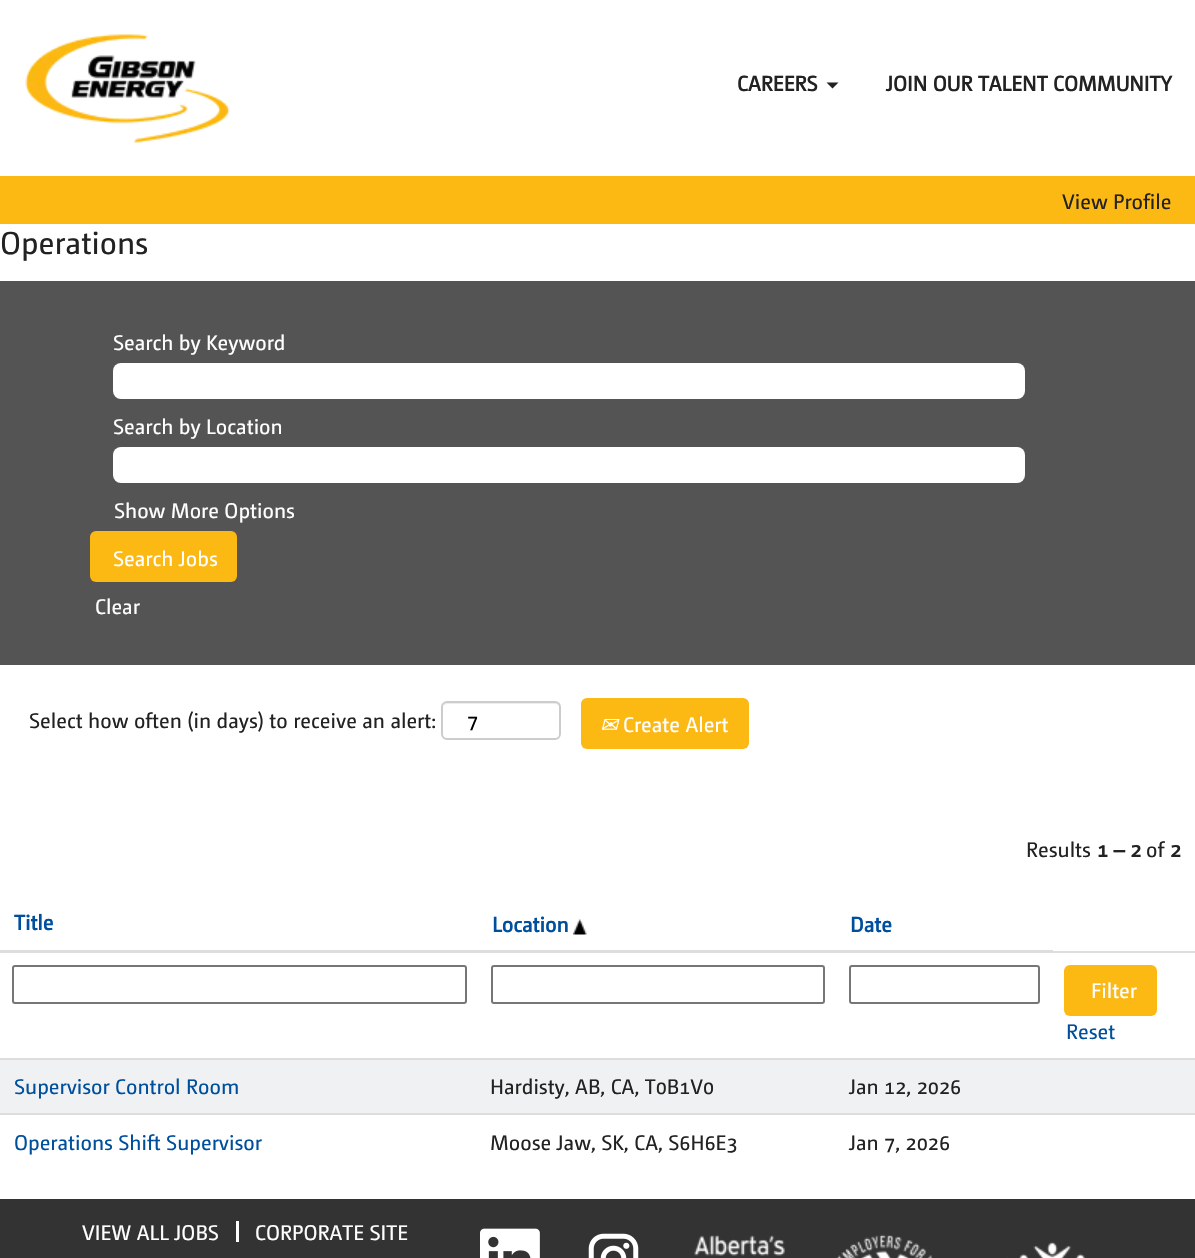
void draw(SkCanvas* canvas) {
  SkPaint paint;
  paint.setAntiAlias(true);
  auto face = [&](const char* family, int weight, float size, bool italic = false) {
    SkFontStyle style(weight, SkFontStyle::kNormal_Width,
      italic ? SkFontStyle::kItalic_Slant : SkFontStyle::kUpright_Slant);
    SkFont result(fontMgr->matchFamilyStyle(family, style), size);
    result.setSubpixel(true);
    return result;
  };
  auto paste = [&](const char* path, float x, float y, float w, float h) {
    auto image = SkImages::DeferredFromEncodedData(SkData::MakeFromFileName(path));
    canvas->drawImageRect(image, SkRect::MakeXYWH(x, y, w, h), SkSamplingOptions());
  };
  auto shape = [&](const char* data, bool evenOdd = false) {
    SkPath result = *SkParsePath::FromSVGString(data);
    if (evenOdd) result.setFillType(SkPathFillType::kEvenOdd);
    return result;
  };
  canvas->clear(0xffffffff);
  paste("img/1.png", 25, 34, 205, 109);
  paint.setColor(0xff222222);
  canvas->drawPath(shape("M826.5 82.5H838.5L832.5 88.5Z"), paint);
  paint.setColor(0xfffcb813);
  canvas->drawRect(SkRect::MakeXYWH(0, 176, 1195, 48), paint);
  paint.setColor(0xff545454);
  canvas->drawRect(SkRect::MakeXYWH(0, 281, 1195, 384), paint);
  paint.setColor(0xffffffff);
  canvas->drawRoundRect(SkRect::MakeXYWH(113, 363, 912, 36), 8, 8, paint);
  canvas->drawRoundRect(SkRect::MakeXYWH(113, 447, 912, 36), 8, 8, paint);
  paint.setColor(0xfffcb813);
  canvas->drawRoundRect(SkRect::MakeXYWH(90, 531, 147, 51), 6, 6, paint);
  paint.setColor(0xffececec);
  canvas->drawPath(shape("M447 704H555C557 704 560 706 560 708V707C560 704 558 702 555 702H448C446 702 444 704 443 706C444 705 446 704 447 704Z"), paint);
  paint.setStroke(true);
  paint.setStrokeWidth(2);
  paint.setColor(0xffcccccc);
  canvas->drawRoundRect(SkRect::MakeXYWH(442, 702, 118, 37), 5, 5, paint);
  paint.setStroke(false);
  paint.setColor(0xfffcb813);
  canvas->drawRoundRect(SkRect::MakeXYWH(581, 698, 168, 51), 6, 6, paint);
  paste("img/2.png", 573, 919, 14, 16);
  paint.setColor(0xffdddddd);
  canvas->drawRect(SkRect::MakeXYWH(1052, 951, 143, 2), paint);
  canvas->drawRect(SkRect::MakeXYWH(0, 950, 1053, 3), paint);
  paint.setStroke(true);
  paint.setColor(0xff767676);
  canvas->drawRoundRect(SkRect::MakeXYWH(13, 966, 453, 37), 2, 2, paint);
  canvas->drawRoundRect(SkRect::MakeXYWH(492, 966, 332, 37), 2, 2, paint);
  canvas->drawRoundRect(SkRect::MakeXYWH(850, 966, 189, 37), 2, 2, paint);
  paint.setStroke(false);
  paint.setColor(0xfffcb813);
  canvas->drawRoundRect(SkRect::MakeXYWH(1064, 965, 93, 51), 6, 6, paint);
  {
    const struct { float x, y, w, h; SkColor color; } items[] = {
      {0, 1060, 1195, 53, 0xfff0f1f2},
      {0, 1058, 1195, 2, 0xffdddddd},
      {0, 1113, 1195, 2, 0xffdddddd},
      {0, 1199, 1195, 59, 0xff333333},
      {236, 1221, 3, 21, 0xffffffff},
    };
    for (auto [x, y, w, h, color] : items) {
      paint.setColor(color);
      canvas->drawRect(SkRect::MakeXYWH(x, y, w, h), paint);
    }
  }
  paste("img/3.png", 480, 1228, 60, 30);
  paste("img/4.png", 588, 1233, 51, 25);
  paste("img/5.png", 694, 1234, 391, 24);
  auto f0 = face("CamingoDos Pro", 700, 21);
  paint.setColor(0xff222222);
  canvas->drawString("CAREERS", 737, 91, f0, paint);
  canvas->drawString("JOIN OUR TALENT COMMUNITY", 886, 91, f0, paint);
  auto f1 = face("CamingoDos Pro", 400, 21);
  canvas->drawString("View Profile", 1062, 209, f1, paint);
  auto f2 = face("CamingoDos Pro", 400, 31.5f);
  canvas->drawString("Operations", 0, 254, f2, paint);
  paint.setColor(0xffffffff);
  {
    const struct { const char* s; float x, y; } items[] = {
      {"Search by Keyword", 113, 350},
      {"Search by Location", 113, 434},
      {"Show More Options", 114, 518},
      {"Search Jobs", 113, 566},
      {"Clear", 95, 614},
    };
    for (auto [s, x, y] : items) {
      canvas->drawString(s, x, y, f1, paint);
    }
  }
  paint.setColor(0xff222222);
  canvas->drawString("Select how often (in days) to receive an alert:", 29, 728, f1, paint);
  paint.setColor(0xff000000);
  canvas->drawString("7", 467, 728, f1, paint);
  auto f3 = face("DejaVu Sans", 400, 21, true);
  paint.setColor(0xffffffff);
  canvas->drawString("✉", 600, 732, f3, paint);
  canvas->drawString("Create Alert", 623, 732, f1, paint);
  paint.setColor(0xff222222);
  canvas->drawString("Results", 1026, 857, f1, paint);
  canvas->drawString("1 – 2", 1097, 857, f0, paint);
  canvas->drawString("of", 1146, 857, f1, paint);
  canvas->drawString("2", 1170, 857, f0, paint);
  paint.setColor(0xff004f9d);
  {
    const struct { const char* s; float x, y; } items[] = {
      {"Title", 14, 930},
      {"Location", 492, 932},
      {"Date", 850, 932},
    };
    for (auto [s, x, y] : items) {
      canvas->drawString(s, x, y, f0, paint);
    }
  }
  paint.setColor(0xffffffff);
  canvas->drawString("Filter", 1091, 998, f1, paint);
  paint.setColor(0xff004f9d);
  canvas->drawString("Reset", 1066, 1039, f1, paint);
  canvas->drawString("Supervisor Control Room", 14, 1094, f1, paint);
  paint.setColor(0xff222222);
  canvas->drawString("Hardisty, AB, CA, T0B1V0", 490, 1094, f1, paint);
  canvas->drawString("Jan 12, 2026", 849, 1094, f1, paint);
  paint.setColor(0xff004f9d);
  canvas->drawString("Operations Shift Supervisor", 14, 1150, f1, paint);
  paint.setColor(0xff222222);
  canvas->drawString("Moose Jaw, SK, CA, S6H6E3", 490, 1150, f1, paint);
  canvas->drawString("Jan 7, 2026", 849, 1150, f1, paint);
  paint.setColor(0xffffffff);
  canvas->drawString("VIEW ALL JOBS", 82, 1240, f1, paint);
  canvas->drawString("CORPORATE SITE", 255, 1240, f1, paint);
}
